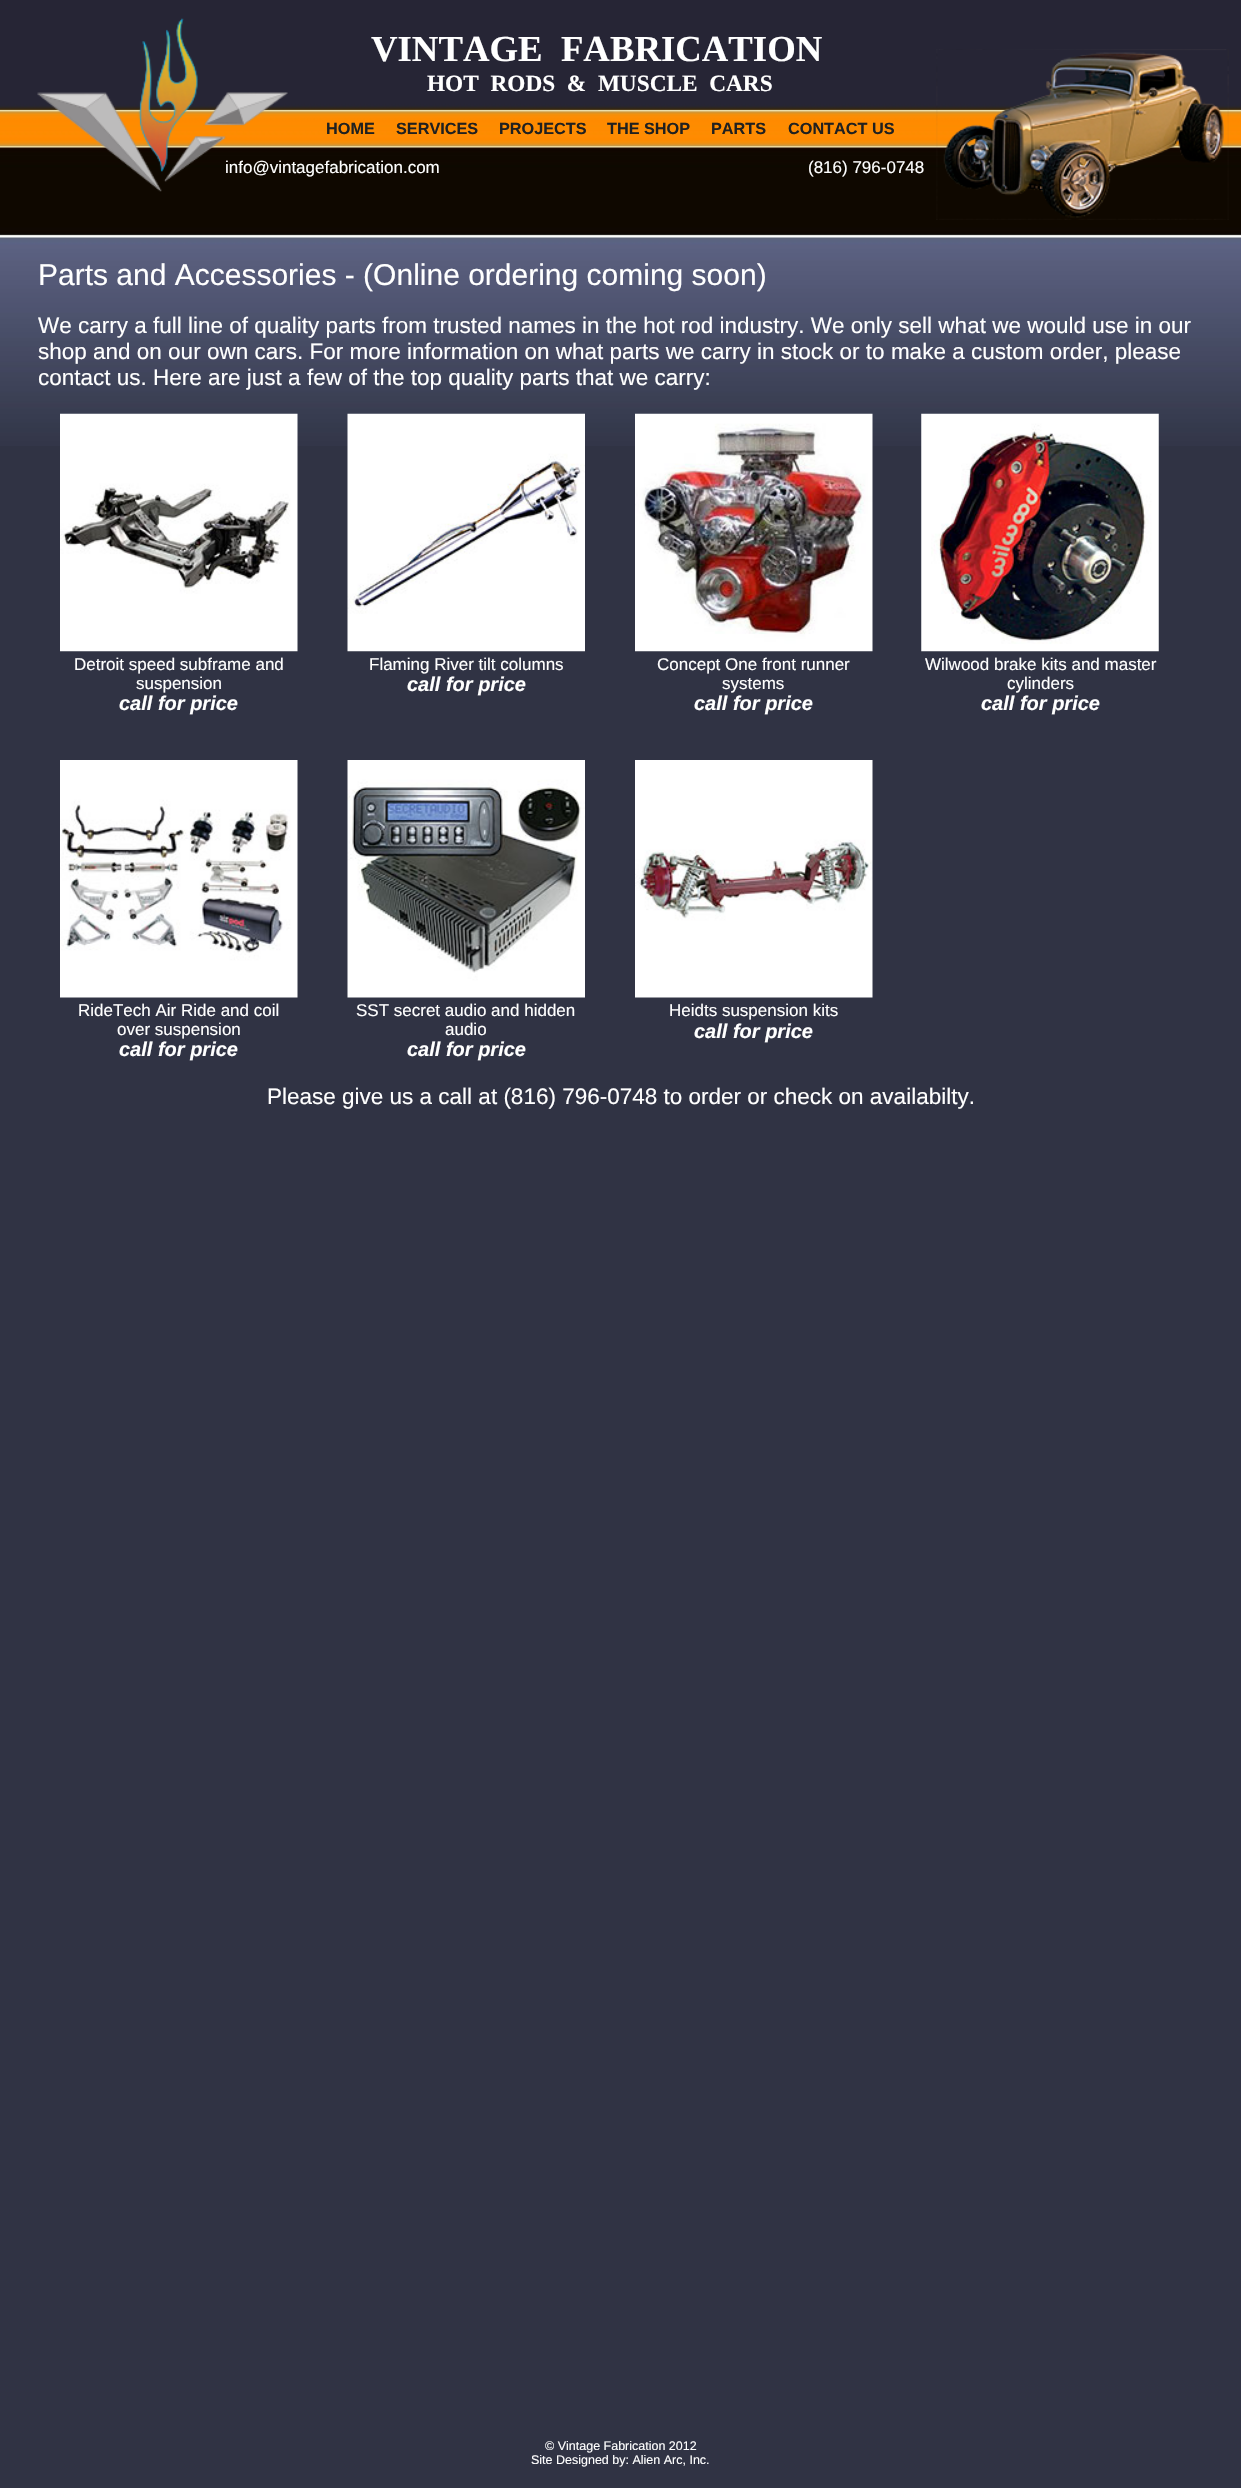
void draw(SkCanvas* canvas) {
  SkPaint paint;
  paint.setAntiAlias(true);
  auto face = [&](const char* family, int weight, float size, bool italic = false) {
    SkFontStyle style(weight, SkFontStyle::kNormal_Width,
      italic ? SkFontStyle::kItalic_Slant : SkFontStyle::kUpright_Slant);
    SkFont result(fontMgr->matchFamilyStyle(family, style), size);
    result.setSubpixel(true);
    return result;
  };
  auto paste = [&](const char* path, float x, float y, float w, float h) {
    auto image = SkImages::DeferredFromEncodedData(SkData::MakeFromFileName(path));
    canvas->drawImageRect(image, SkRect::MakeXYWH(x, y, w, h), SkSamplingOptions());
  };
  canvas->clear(0xff303344);
  paste("img/1.png", 0, 0, 1241, 446);
  paste("img/2.png", 37, 18, 251, 174);
  paste("img/3.png", 936, 49, 293, 171);
  paste("img/4.png", 60, 413, 238, 239);
  paste("img/5.png", 347, 413, 238, 239);
  paste("img/6.png", 635, 413, 238, 239);
  paste("img/7.png", 921, 413, 238, 239);
  paste("img/8.png", 60, 760, 238, 238);
  paste("img/9.png", 347, 760, 238, 238);
  paste("img/10.png", 635, 760, 238, 238);
  auto f0 = face("Liberation Serif", 700, 36.75f);
  paint.setColor(0xffffffff);
  canvas->drawString("VINTAGE  FABRICATION", 371, 61, f0, paint);
  auto f1 = face("Liberation Serif", 700, 23.3f);
  canvas->drawString("HOT  RODS  &  MUSCLE  CARS", 427, 91, f1, paint);
  auto f2 = face("Liberation Sans", 700, 16.25f);
  paint.setColor(0xff202020);
  {
    const struct { const char* s; float x, y; } items[] = {
      {"HOME", 326, 134},
      {"SERVICES", 396, 134},
      {"PROJECTS", 499, 134},
      {"THE SHOP", 607, 134},
      {"PARTS", 711, 134},
      {"CONTACT US", 788, 134},
    };
    for (auto [s, x, y] : items) {
      canvas->drawString(s, x, y, f2, paint);
    }
  }
  auto f3 = face("Liberation Sans", 400, 17);
  paint.setColor(0xffffffff);
  canvas->drawString("info@vintagefabrication.com", 225, 173, f3, paint);
  canvas->drawString("(816) 796-0748", 808, 173, f3, paint);
  auto f4 = face("Liberation Sans", 400, 30);
  canvas->drawString("Parts and Accessories - (Online ordering coming soon)", 38, 285, f4, paint);
  auto f5 = face("Liberation Sans", 400, 22.5f);
  {
    const struct { const char* s; float x, y; } items[] = {
      {"We carry a full line of quality parts from trusted names in the hot rod industry. We only sell what we would use in our", 38, 333},
      {"shop and on our own cars. For more information on what parts we carry in stock or to make a custom order, please", 38, 359},
      {"contact us. Here are just a few of the top quality parts that we carry:", 38, 385},
    };
    for (auto [s, x, y] : items) {
      canvas->drawString(s, x, y, f5, paint);
    }
  }
  canvas->drawString("Detroit speed subframe and", 74, 670, f3, paint);
  canvas->drawString("suspension", 136, 689, f3, paint);
  auto f6 = face("Liberation Sans", 700, 20, true);
  canvas->drawString("call for price", 119, 710, f6, paint);
  canvas->drawString("Flaming River tilt columns", 369, 670, f3, paint);
  canvas->drawString("call for price", 407, 691, f6, paint);
  canvas->drawString("Concept One front runner", 657, 670, f3, paint);
  canvas->drawString("systems", 722, 689, f3, paint);
  canvas->drawString("call for price", 694, 710, f6, paint);
  canvas->drawString("Wilwood brake kits and master", 925, 670, f3, paint);
  canvas->drawString("cylinders", 1007, 689, f3, paint);
  canvas->drawString("call for price", 981, 710, f6, paint);
  canvas->drawString("RideTech Air Ride and coil", 78, 1016, f3, paint);
  canvas->drawString("over suspension", 117, 1035, f3, paint);
  canvas->drawString("call for price", 119, 1056, f6, paint);
  canvas->drawString("SST secret audio and hidden", 356, 1016, f3, paint);
  canvas->drawString("audio", 445, 1035, f3, paint);
  canvas->drawString("call for price", 407, 1056, f6, paint);
  canvas->drawString("Heidts suspension kits", 669, 1016, f3, paint);
  canvas->drawString("call for price", 694, 1038, f6, paint);
  canvas->drawString("Please give us a call at (816) 796-0748 to order or check on availabilty.", 267, 1104, f5, paint);
  auto f7 = face("Liberation Sans", 400, 12.5f);
  canvas->drawString("© Vintage Fabrication 2012", 545, 2450, f7, paint);
  canvas->drawString("Site Designed by: Alien Arc, Inc.", 531, 2464, f7, paint);
}
